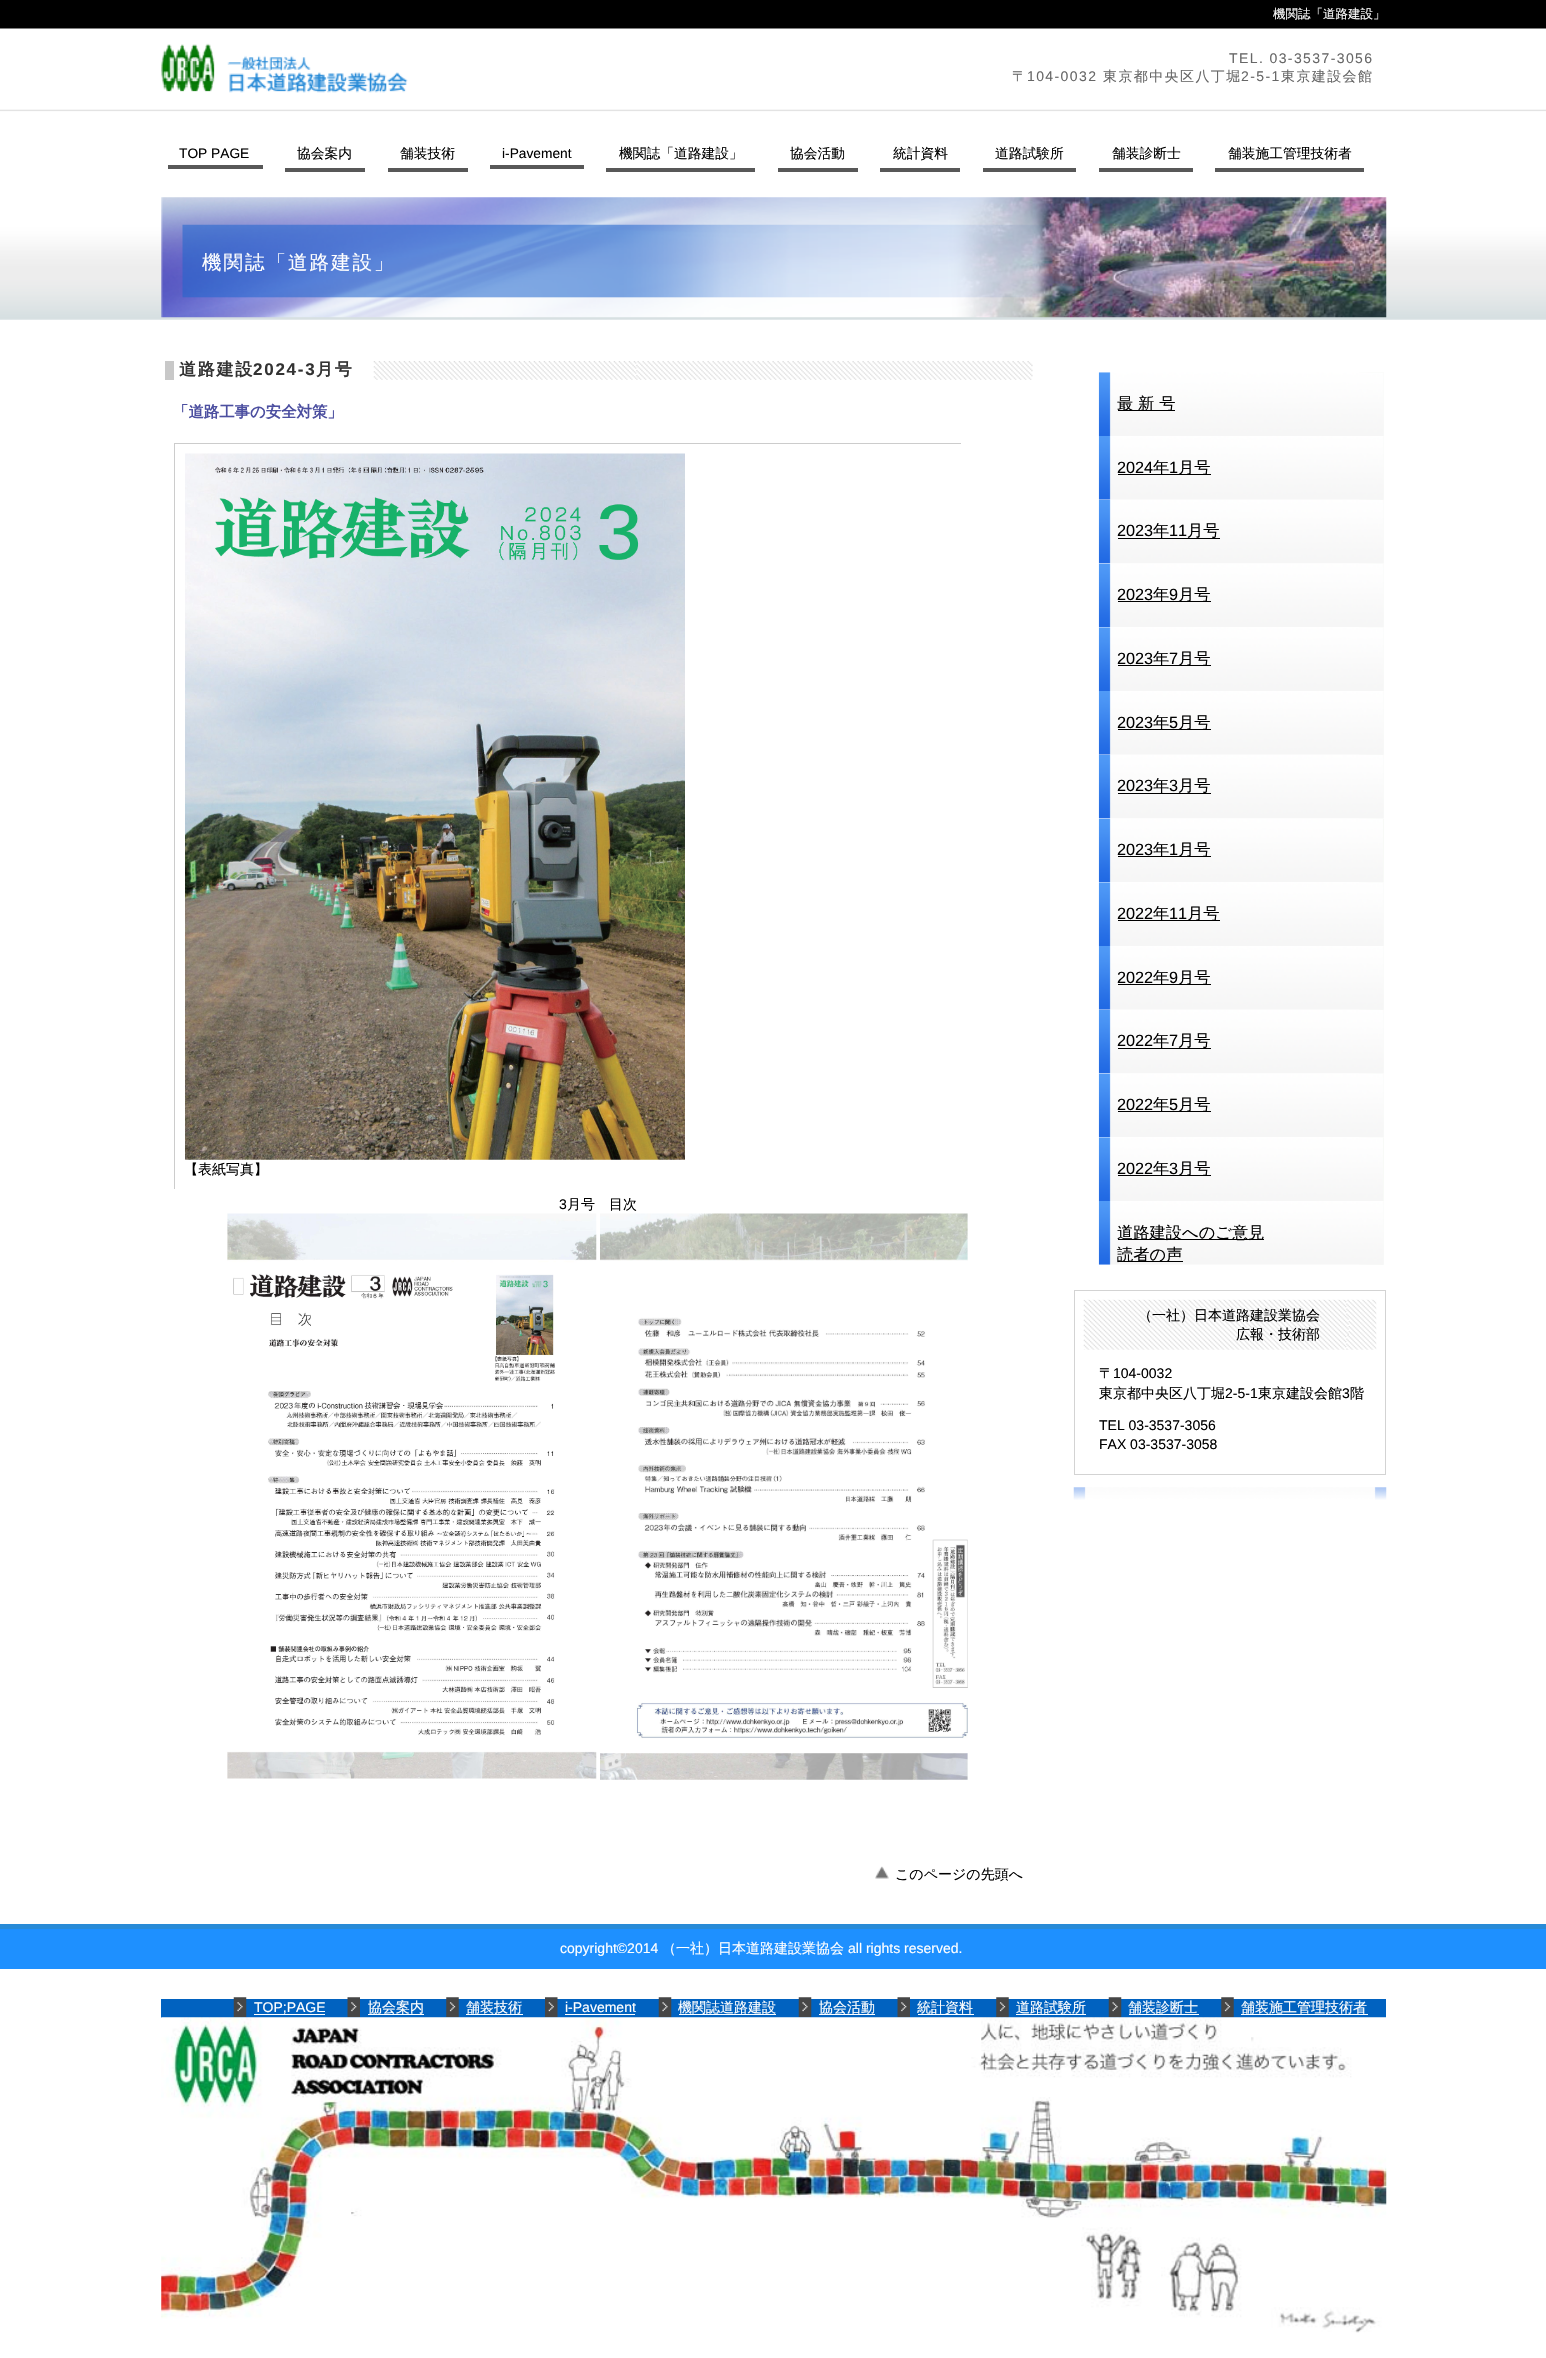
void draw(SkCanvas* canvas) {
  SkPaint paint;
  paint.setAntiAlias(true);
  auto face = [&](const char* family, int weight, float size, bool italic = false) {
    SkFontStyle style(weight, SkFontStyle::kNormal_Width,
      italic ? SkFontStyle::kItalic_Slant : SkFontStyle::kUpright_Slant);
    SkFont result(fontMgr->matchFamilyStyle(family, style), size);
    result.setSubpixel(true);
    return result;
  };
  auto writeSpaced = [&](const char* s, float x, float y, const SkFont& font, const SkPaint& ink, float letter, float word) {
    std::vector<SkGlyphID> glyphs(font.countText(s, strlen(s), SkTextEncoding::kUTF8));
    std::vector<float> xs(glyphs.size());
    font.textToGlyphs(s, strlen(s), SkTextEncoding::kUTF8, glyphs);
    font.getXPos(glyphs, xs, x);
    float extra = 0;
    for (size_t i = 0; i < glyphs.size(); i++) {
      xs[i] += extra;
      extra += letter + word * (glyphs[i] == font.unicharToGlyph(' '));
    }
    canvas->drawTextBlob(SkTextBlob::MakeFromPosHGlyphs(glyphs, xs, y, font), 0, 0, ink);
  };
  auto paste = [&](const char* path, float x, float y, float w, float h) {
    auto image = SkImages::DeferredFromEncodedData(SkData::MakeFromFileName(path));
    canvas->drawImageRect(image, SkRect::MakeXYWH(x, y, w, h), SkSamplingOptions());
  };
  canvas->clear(0xffffffff);
  paste("img/1.png", 0, 0, 1546, 320);
  paste("img/2.png", 161, 43, 247, 50);
  {
    const struct { float x, y, w, h; SkColor color; } items[] = {
      {168, 165, 95, 4, 0xff585858},
      {285, 168, 80, 4, 0xff585858},
      {388, 168, 80, 4, 0xff585858},
      {490, 165, 94, 4, 0xff585858},
      {606, 168, 149, 4, 0xff585858},
      {778, 168, 80, 4, 0xff585858},
      {880, 168, 80, 4, 0xff585858},
      {983, 168, 93, 4, 0xff585858},
      {1099, 168, 94, 4, 0xff585858},
      {1215, 168, 149, 4, 0xff585858},
    };
    for (auto [x, y, w, h, color] : items) {
      paint.setColor(color);
      canvas->drawRect(SkRect::MakeXYWH(x, y, w, h), paint);
    }
  }
  paste("img/3.png", 161, 197, 1226, 121);
  paste("img/4.png", 373, 361, 660, 19);
  {
    const struct { float x, y, w, h; SkColor color; } items[] = {
      {165, 361, 9, 19, 0xffc8c8c8},
      {174, 443, 787, 1, 0xffcccccc},
      {174, 443, 1, 746, 0xffcccccc},
    };
    for (auto [x, y, w, h, color] : items) {
      paint.setColor(color);
      canvas->drawRect(SkRect::MakeXYWH(x, y, w, h), paint);
    }
  }
  paste("img/5.png", 185, 453, 500, 707);
  paste("img/6.png", 227, 1213, 370, 566);
  paste("img/7.png", 600, 1213, 368, 567);
  paste("img/8.png", 875, 1866, 14, 13);
  paste("img/9.png", 1359, 372, 25, 64);
  paste("img/10.png", 1098, 372, 286, 64);
  paint.setColor(0xff000000);
  canvas->drawRect(SkRect::MakeXYWH(1118, 410, 57, 1), paint);
  paste("img/11.png", 1359, 436, 25, 64);
  paste("img/12.png", 1098, 436, 286, 64);
  canvas->drawRect(SkRect::MakeXYWH(1118, 474, 93, 1), paint);
  paste("img/13.png", 1359, 500, 25, 64);
  paste("img/14.png", 1098, 500, 286, 64);
  canvas->drawRect(SkRect::MakeXYWH(1118, 538, 102, 1), paint);
  paste("img/15.png", 1383, 564, 1, 63);
  paste("img/16.png", 1098, 563, 286, 65);
  canvas->drawRect(SkRect::MakeXYWH(1118, 601, 93, 1), paint);
  paste("img/9.png", 1359, 627, 25, 64);
  paste("img/17.png", 1098, 627, 286, 64);
  canvas->drawRect(SkRect::MakeXYWH(1118, 665, 93, 1), paint);
  paste("img/11.png", 1359, 691, 25, 64);
  paste("img/12.png", 1098, 691, 286, 64);
  canvas->drawRect(SkRect::MakeXYWH(1118, 729, 93, 1), paint);
  paste("img/13.png", 1359, 755, 25, 64);
  paste("img/14.png", 1098, 755, 286, 64);
  canvas->drawRect(SkRect::MakeXYWH(1118, 793, 93, 1), paint);
  paste("img/15.png", 1383, 819, 1, 63);
  paste("img/18.png", 1098, 818, 285, 65);
  canvas->drawRect(SkRect::MakeXYWH(1118, 856, 93, 1), paint);
  paste("img/9.png", 1359, 882, 25, 64);
  paste("img/17.png", 1098, 882, 286, 64);
  canvas->drawRect(SkRect::MakeXYWH(1118, 920, 102, 1), paint);
  paste("img/11.png", 1359, 946, 25, 64);
  paste("img/12.png", 1098, 946, 286, 64);
  canvas->drawRect(SkRect::MakeXYWH(1118, 984, 93, 1), paint);
  paste("img/13.png", 1359, 1010, 25, 64);
  paste("img/14.png", 1098, 1010, 286, 64);
  canvas->drawRect(SkRect::MakeXYWH(1118, 1048, 93, 1), paint);
  paste("img/15.png", 1383, 1074, 1, 63);
  paste("img/19.png", 1098, 1073, 286, 65);
  canvas->drawRect(SkRect::MakeXYWH(1118, 1111, 93, 1), paint);
  paste("img/9.png", 1359, 1137, 25, 64);
  paste("img/20.png", 1098, 1137, 285, 64);
  canvas->drawRect(SkRect::MakeXYWH(1118, 1175, 93, 1), paint);
  paste("img/11.png", 1359, 1201, 25, 64);
  paste("img/12.png", 1098, 1201, 286, 64);
  canvas->drawRect(SkRect::MakeXYWH(1118, 1239, 146, 1), paint);
  canvas->drawRect(SkRect::MakeXYWH(1118, 1261, 65, 1), paint);
  paste("img/21.png", 1073, 1487, 314, 13);
  paint.setStroke(true);
  paint.setStrokeWidth(1);
  paint.setColor(0xffd3d3d3);
  canvas->drawRect(SkRect::MakeXYWH(1074.5f, 1290.5f, 311, 184), paint);
  paste("img/22.png", 1083, 1299, 294, 51);
  paint.setStroke(false);
  {
    const struct { float x, y, w, h; SkColor color; } items[] = {
      {0, 1924, 1546, 5, 0xff288bd7},
      {0, 1929, 1546, 40, 0xff1e90ff},
      {161, 1999, 1225, 19, 0xff0162c0},
    };
    for (auto [x, y, w, h, color] : items) {
      paint.setColor(color);
      canvas->drawRect(SkRect::MakeXYWH(x, y, w, h), paint);
    }
  }
  paste("img/23.png", 233, 1997, 14, 21);
  paint.setColor(0xffffffff);
  canvas->drawRect(SkRect::MakeXYWH(254, 2014, 71, 1), paint);
  paste("img/24.png", 347, 1997, 13, 21);
  canvas->drawRect(SkRect::MakeXYWH(368, 2014, 56, 1), paint);
  paste("img/25.png", 446, 1997, 13, 21);
  canvas->drawRect(SkRect::MakeXYWH(466, 2014, 57, 1), paint);
  paste("img/26.png", 545, 1997, 13, 21);
  canvas->drawRect(SkRect::MakeXYWH(565, 2014, 70, 1), paint);
  paste("img/23.png", 658, 1997, 14, 21);
  canvas->drawRect(SkRect::MakeXYWH(679, 2014, 97, 1), paint);
  paste("img/23.png", 798, 1997, 14, 21);
  canvas->drawRect(SkRect::MakeXYWH(819, 2014, 56, 1), paint);
  paste("img/27.png", 897, 1997, 13, 21);
  canvas->drawRect(SkRect::MakeXYWH(918, 2014, 56, 1), paint);
  paste("img/25.png", 996, 1997, 13, 21);
  canvas->drawRect(SkRect::MakeXYWH(1016, 2014, 70, 1), paint);
  paste("img/28.png", 1108, 1997, 14, 21);
  canvas->drawRect(SkRect::MakeXYWH(1129, 2014, 70, 1), paint);
  paste("img/25.png", 1221, 1997, 13, 21);
  canvas->drawRect(SkRect::MakeXYWH(1241, 2014, 127, 1), paint);
  paste("img/29.png", 161, 2017, 1226, 316);
  auto f0 = face("WenQuanYi Zen Hei", 500, 12.5f);
  canvas->drawString("機関誌「道路建設」", 1273, 18, f0, paint);
  auto f1 = face("Liberation Sans", 400, 14);
  paint.setColor(0xff676767);
  writeSpaced("TEL. 03-3537-3056", 1229, 63, f1, paint, 1.4f, 0);
  auto f2 = face("WenQuanYi Zen Hei", 500, 14);
  writeSpaced("〒", 1012, 81, f2, paint, 1.4f, 0);
  writeSpaced("104-0032", 1027, 81, f1, paint, 1.4f, 0);
  writeSpaced("東京都中央区八丁堀", 1103, 81, f2, paint, 1.4f, 0);
  writeSpaced("2-5-1", 1241, 81, f1, paint, 1.4f, 0);
  writeSpaced("東京建設会館", 1281, 81, f2, paint, 1.4f, 0);
  auto f3 = face("Liberation Sans", 400, 13.75f);
  paint.setColor(0xff000000);
  canvas->drawString("TOP PAGE", 179, 158, f3, paint);
  auto f4 = face("WenQuanYi Zen Hei", 500, 13.75f);
  canvas->drawString("協会案内", 297, 158, f4, paint);
  canvas->drawString("舗装技術", 400, 158, f4, paint);
  canvas->drawString("i-Pavement", 502, 158, f3, paint);
  {
    const struct { const char* s; float x, y; } items[] = {
      {"機関誌「道路建設」", 619, 158},
      {"協会活動", 790, 158},
      {"統計資料", 893, 158},
      {"道路試験所", 995, 158},
      {"舗装診断士", 1112, 158},
      {"舗装施工管理技術者", 1228, 158},
    };
    for (auto [s, x, y] : items) {
      canvas->drawString(s, x, y, f4, paint);
    }
  }
  auto f5 = face("WenQuanYi Zen Hei", 500, 19.5f);
  paint.setColor(0xffffffff);
  writeSpaced("機関誌「道路建設」", 202, 269, f5, paint, 2, 0);
  auto f6 = face("WenQuanYi Zen Hei", 700, 17);
  paint.setColor(0xff333333);
  writeSpaced("道路建設", 179, 375, f6, paint, 1.75f, 0);
  auto f7 = face("Liberation Sans", 700, 17);
  writeSpaced("2024-3", 253, 375, f7, paint, 1.75f, 0);
  writeSpaced("月号", 316, 375, f6, paint, 1.75f, 0);
  auto f8 = face("WenQuanYi Zen Hei", 700, 15.4f);
  paint.setColor(0xff4c4fa0);
  canvas->drawString("「道路工事の安全対策」", 173, 417, f8, paint);
  paint.setColor(0xff000000);
  canvas->drawString("【表紙写真】", 184, 1174, f2, paint);
  canvas->drawString("3", 559, 1209, f1, paint);
  canvas->drawString("月号　目次", 567, 1209, f2, paint);
  canvas->drawString("このページの先頭へ", 895, 1879, f2, paint);
  auto f9 = face("WenQuanYi Zen Hei", 500, 16.25f);
  canvas->drawString("最 新 号", 1117, 409, f9, paint);
  auto f10 = face("Liberation Sans", 400, 16.25f);
  canvas->drawString("2024", 1117, 473, f10, paint);
  canvas->drawString("年", 1153, 473, f9, paint);
  canvas->drawString("1", 1169, 473, f10, paint);
  canvas->drawString("月号", 1178, 473, f9, paint);
  canvas->drawString("2023", 1117, 536, f10, paint);
  canvas->drawString("年", 1153, 536, f9, paint);
  canvas->drawString("11", 1169, 536, f10, paint);
  canvas->drawString("月号", 1187, 536, f9, paint);
  canvas->drawString("2023", 1117, 600, f10, paint);
  canvas->drawString("年", 1153, 600, f9, paint);
  canvas->drawString("9", 1169, 600, f10, paint);
  canvas->drawString("月号", 1178, 600, f9, paint);
  canvas->drawString("2023", 1117, 664, f10, paint);
  canvas->drawString("年", 1153, 664, f9, paint);
  canvas->drawString("7", 1169, 664, f10, paint);
  canvas->drawString("月号", 1178, 664, f9, paint);
  canvas->drawString("2023", 1117, 728, f10, paint);
  canvas->drawString("年", 1153, 728, f9, paint);
  canvas->drawString("5", 1169, 728, f10, paint);
  canvas->drawString("月号", 1178, 728, f9, paint);
  canvas->drawString("2023", 1117, 791, f10, paint);
  canvas->drawString("年", 1153, 791, f9, paint);
  canvas->drawString("3", 1169, 791, f10, paint);
  canvas->drawString("月号", 1178, 791, f9, paint);
  canvas->drawString("2023", 1117, 855, f10, paint);
  canvas->drawString("年", 1153, 855, f9, paint);
  canvas->drawString("1", 1169, 855, f10, paint);
  canvas->drawString("月号", 1178, 855, f9, paint);
  canvas->drawString("2022", 1117, 919, f10, paint);
  canvas->drawString("年", 1153, 919, f9, paint);
  canvas->drawString("11", 1169, 919, f10, paint);
  canvas->drawString("月号", 1187, 919, f9, paint);
  canvas->drawString("2022", 1117, 983, f10, paint);
  canvas->drawString("年", 1153, 983, f9, paint);
  canvas->drawString("9", 1169, 983, f10, paint);
  canvas->drawString("月号", 1178, 983, f9, paint);
  canvas->drawString("2022", 1117, 1046, f10, paint);
  canvas->drawString("年", 1153, 1046, f9, paint);
  canvas->drawString("7", 1169, 1046, f10, paint);
  canvas->drawString("月号", 1178, 1046, f9, paint);
  canvas->drawString("2022", 1117, 1110, f10, paint);
  canvas->drawString("年", 1153, 1110, f9, paint);
  canvas->drawString("5", 1169, 1110, f10, paint);
  canvas->drawString("月号", 1178, 1110, f9, paint);
  canvas->drawString("2022", 1117, 1174, f10, paint);
  canvas->drawString("年", 1153, 1174, f9, paint);
  canvas->drawString("3", 1169, 1174, f10, paint);
  {
    const struct { const char* s; float x, y; } items[] = {
      {"月号", 1178, 1174},
      {"道路建設へのご意見", 1117, 1238},
      {"読者の声", 1117, 1260},
    };
    for (auto [s, x, y] : items) {
      canvas->drawString(s, x, y, f9, paint);
    }
  }
  {
    const struct { const char* s; float x, y; } items[] = {
      {"（一社）日本道路建設業協会", 1138, 1320},
      {"広報・技術部", 1236, 1339},
      {"〒", 1099, 1378},
    };
    for (auto [s, x, y] : items) {
      canvas->drawString(s, x, y, f2, paint);
    }
  }
  canvas->drawString("104-0032", 1113, 1378, f1, paint);
  canvas->drawString("東京都中央区八丁堀", 1099, 1398, f2, paint);
  canvas->drawString("2-5-1", 1225, 1398, f1, paint);
  canvas->drawString("東京建設会館", 1258, 1398, f2, paint);
  canvas->drawString("3", 1342, 1398, f1, paint);
  canvas->drawString("階", 1350, 1398, f2, paint);
  canvas->drawString("TEL 03-3537-3056", 1099, 1430, f1, paint);
  canvas->drawString("FAX 03-3537-3058", 1099, 1449, f1, paint);
  paint.setColor(0xffffffff);
  canvas->drawString("copyright©2014", 560, 1953, f1, paint);
  canvas->drawString("（一社）日本道路建設業協会", 662, 1953, f2, paint);
  canvas->drawString("all rights reserved.", 848, 1953, f1, paint);
  canvas->drawString("TOP;PAGE", 254, 2012, f1, paint);
  canvas->drawString("協会案内", 368, 2012, f2, paint);
  canvas->drawString("舗装技術", 466, 2012, f2, paint);
  canvas->drawString("i-Pavement", 565, 2012, f1, paint);
  {
    const struct { const char* s; float x, y; } items[] = {
      {"機関誌道路建設", 678, 2012},
      {"協会活動", 819, 2012},
      {"統計資料", 917, 2012},
      {"道路試験所", 1016, 2012},
      {"舗装診断士", 1128, 2012},
      {"舗装施工管理技術者", 1241, 2012},
    };
    for (auto [s, x, y] : items) {
      canvas->drawString(s, x, y, f2, paint);
    }
  }
}
